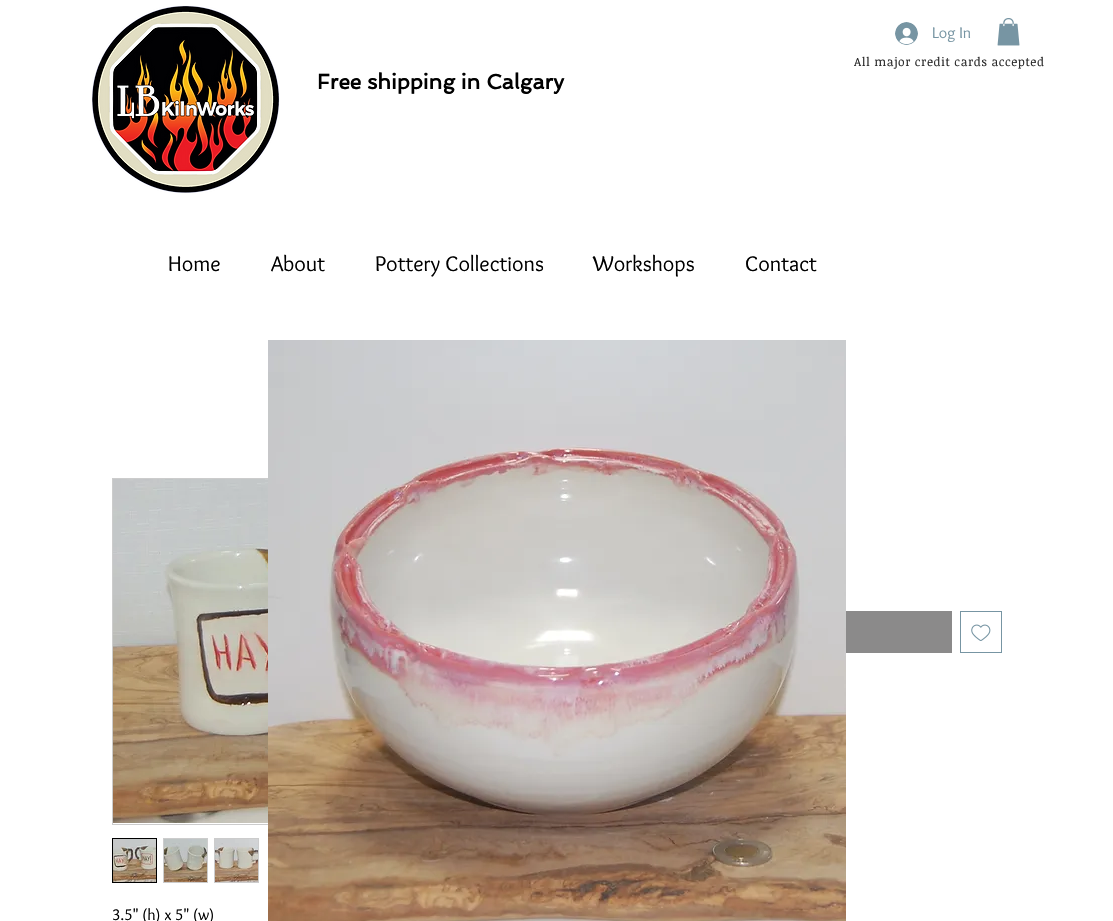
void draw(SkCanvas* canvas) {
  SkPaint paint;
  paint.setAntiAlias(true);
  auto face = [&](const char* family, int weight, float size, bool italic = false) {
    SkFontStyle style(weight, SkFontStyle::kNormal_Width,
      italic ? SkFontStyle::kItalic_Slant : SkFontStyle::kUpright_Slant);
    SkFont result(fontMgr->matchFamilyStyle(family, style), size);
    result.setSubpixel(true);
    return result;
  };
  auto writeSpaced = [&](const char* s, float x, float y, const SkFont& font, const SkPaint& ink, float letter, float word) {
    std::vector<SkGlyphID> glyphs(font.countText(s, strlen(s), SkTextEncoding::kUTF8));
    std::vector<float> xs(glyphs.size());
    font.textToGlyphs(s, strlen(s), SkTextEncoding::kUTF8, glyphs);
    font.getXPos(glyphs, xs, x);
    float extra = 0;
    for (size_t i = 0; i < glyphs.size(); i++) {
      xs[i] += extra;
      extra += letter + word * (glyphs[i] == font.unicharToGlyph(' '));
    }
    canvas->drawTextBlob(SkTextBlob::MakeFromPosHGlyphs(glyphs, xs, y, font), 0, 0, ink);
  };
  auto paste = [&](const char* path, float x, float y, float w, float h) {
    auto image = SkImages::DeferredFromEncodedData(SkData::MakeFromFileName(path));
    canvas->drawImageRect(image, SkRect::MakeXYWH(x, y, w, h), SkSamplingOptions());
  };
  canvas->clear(0xffffffff);
  paste("img/1.png", 92, 6, 188, 187);
  paste("img/2.png", 895, 22, 23, 23);
  paste("img/3.png", 997, 18, 23, 28);
  paint.setColor(0xff8b8a8a);
  canvas->drawRect(SkRect::MakeXYWH(846, 611, 106, 42), paint);
  paint.setStroke(true);
  paint.setStrokeWidth(1);
  paint.setColor(0xff7795a3);
  canvas->drawRect(SkRect::MakeXYWH(960.5f, 611.5f, 41, 41), paint);
  paste("img/4.png", 971, 624, 20, 17);
  paint.setColor(0xffcccccc);
  canvas->drawRect(SkRect::MakeXYWH(112.5f, 478.5f, 501, 346), paint);
  paste("img/5.png", 113, 479, 155, 344);
  paint.setColor(0xff000000);
  canvas->drawRect(SkRect::MakeXYWH(112.5f, 838.5f, 44, 44), paint);
  paste("img/6.png", 113, 839, 43, 43);
  paint.setStroke(false);
  paint.setColor(0xffcccccc);
  canvas->drawRect(SkRect::MakeXYWH(163, 838, 45, 45), paint);
  paste("img/7.png", 164, 839, 43, 43);
  canvas->drawRect(SkRect::MakeXYWH(214, 838, 45, 45), paint);
  paste("img/8.png", 215, 839, 43, 43);
  paste("img/9.png", 268, 340, 578, 581);
  auto f0 = face("Overlock", 400, 16);
  paint.setColor(0xff7795a3);
  canvas->drawString("Log In", 932, 38, f0, paint);
  auto f1 = face("Noticia Text", 400, 12);
  paint.setColor(0xff292929);
  writeSpaced("All major credit cards accepted", 854, 66, f1, paint, 0.6f, 0);
  auto f2 = face("Spinnaker", 700, 21);
  paint.setColor(0xff000000);
  canvas->drawString("Free shipping in Calgary", 317, 89, f2, paint);
  auto f3 = face("Overlock", 400, 22);
  {
    const struct { const char* s; float x, y; } items[] = {
      {"Home", 168, 271},
      {"About", 271, 271},
      {"Pottery Collections", 375, 271},
      {"Workshops", 593, 271},
      {"Contact", 745, 271},
    };
    for (auto [s, x, y] : items) {
      canvas->drawString(s, x, y, f3, paint);
    }
  }
  canvas->drawString("3.5\" (h) x 5\" (w)", 112, 920, f0, paint);
}
